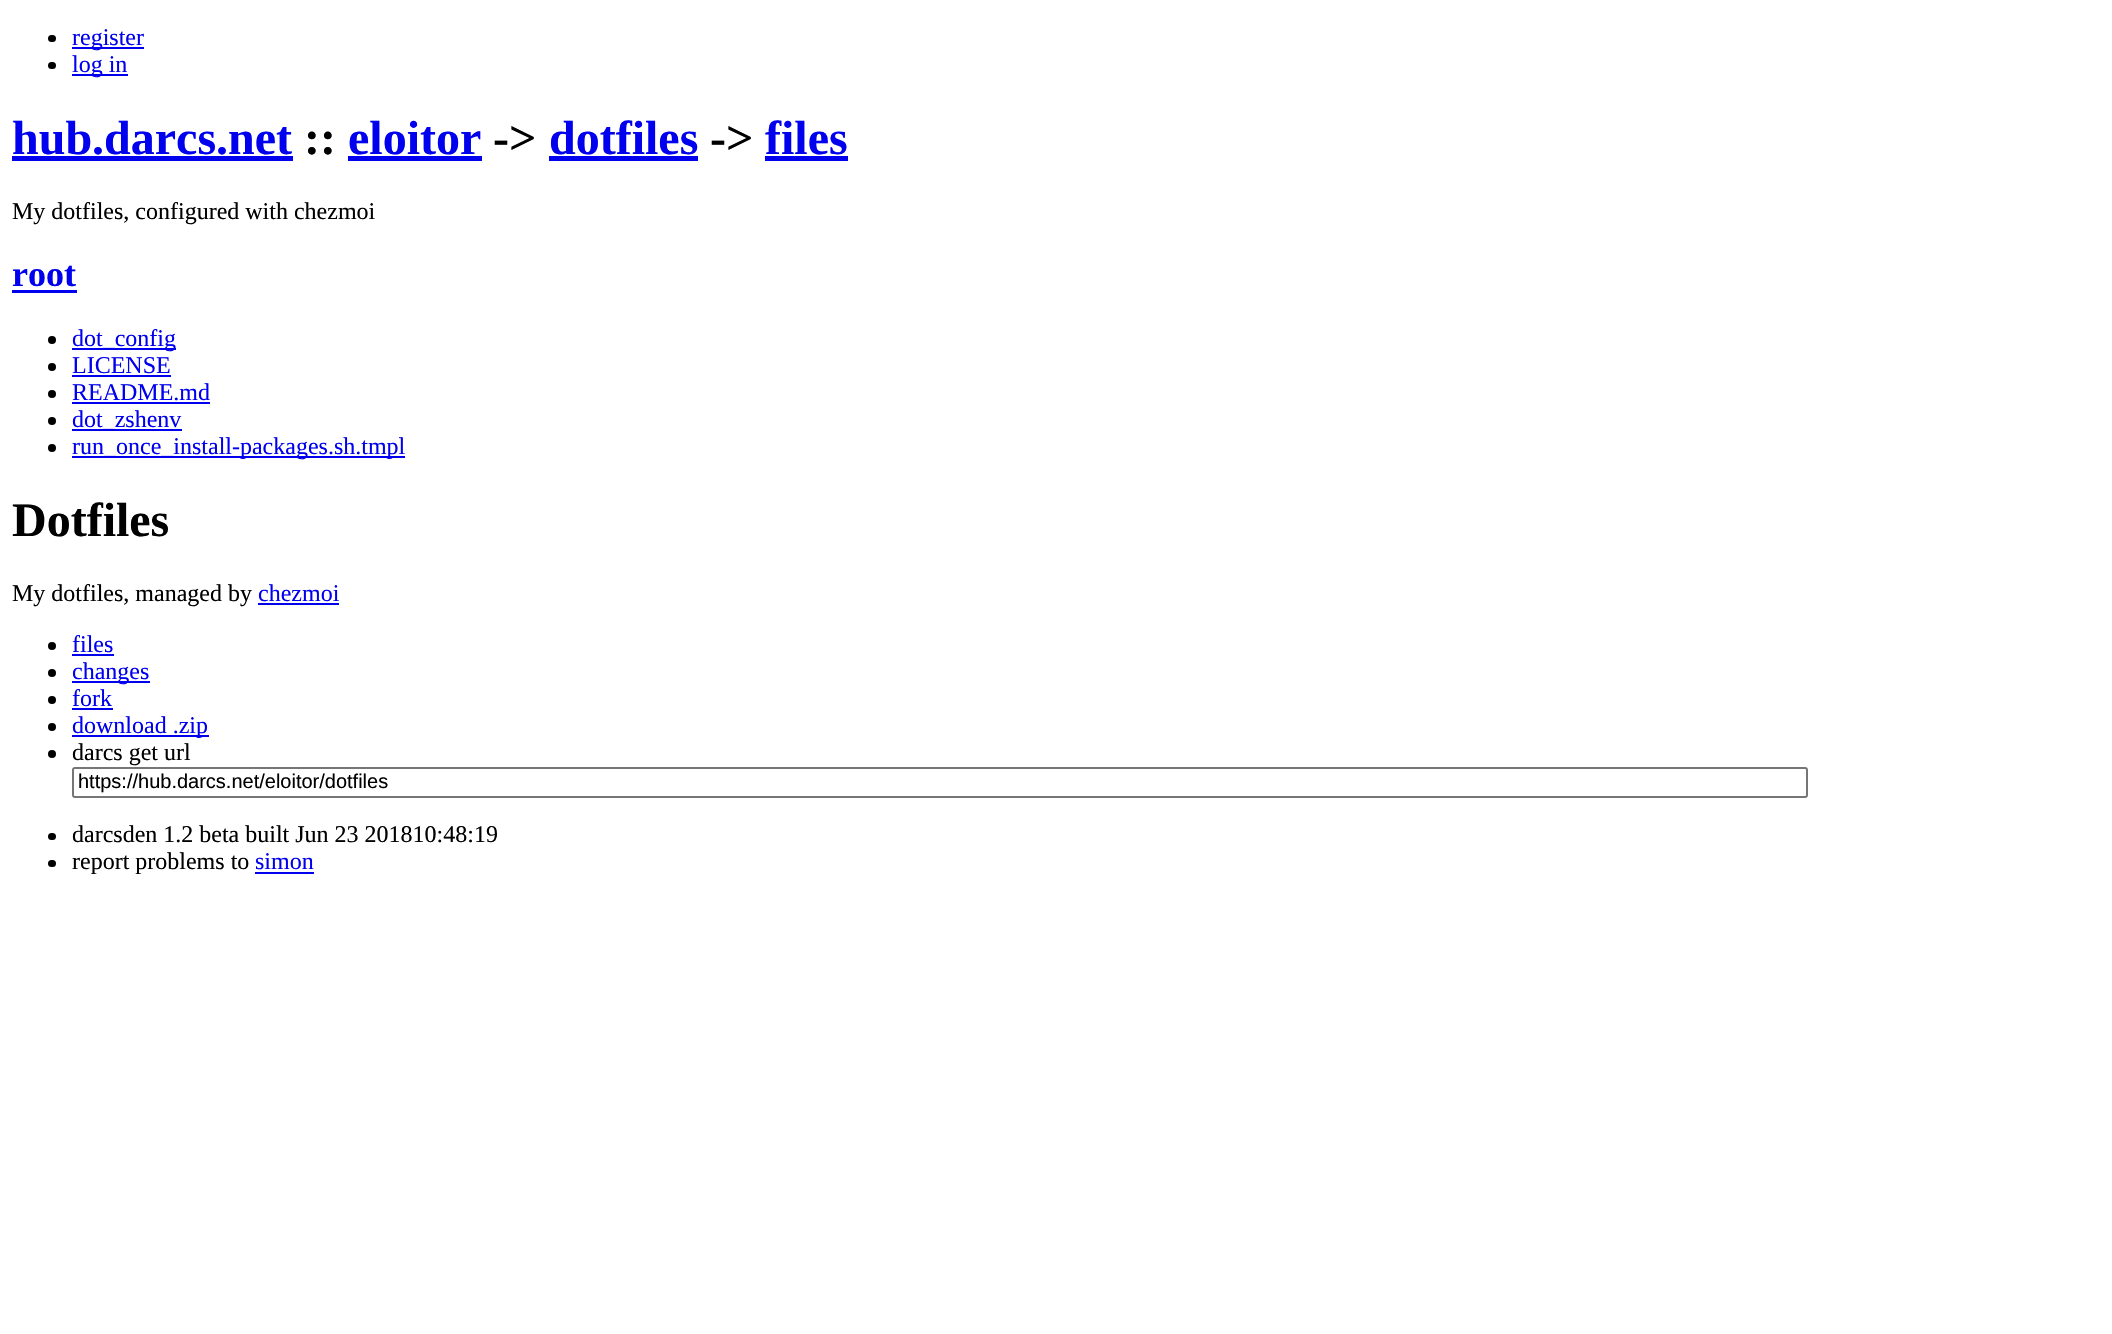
void draw(SkCanvas* canvas) {
  SkPaint paint;
  paint.setAntiAlias(true);
  auto face = [&](const char* family, int weight, float size, bool italic = false) {
    SkFontStyle style(weight, SkFontStyle::kNormal_Width,
      italic ? SkFontStyle::kItalic_Slant : SkFontStyle::kUpright_Slant);
    SkFont result(fontMgr->matchFamilyStyle(family, style), size);
    result.setSubpixel(true);
    return result;
  };
  canvas->clear(0xffffffff);
  paint.setColor(0xff000000);
  canvas->drawRoundRect(SkRect::MakeXYWH(48, 35, 8, 7), 3.5f, 3.5f, paint);
  paint.setColor(0xff0000ee);
  canvas->drawRect(SkRect::MakeXYWH(72, 47, 72, 2), paint);
  paint.setColor(0xff000000);
  canvas->drawRoundRect(SkRect::MakeXYWH(48, 62, 8, 7), 3.5f, 3.5f, paint);
  {
    const struct { float x, y, w, h; SkColor color; } items[] = {
      {72, 74, 56, 2, 0xff0000ee},
      {12, 156, 281, 5, 0xff0000ee},
      {348, 156, 134, 5, 0xff0000ee},
      {549, 156, 149, 5, 0xff0000ee},
      {765, 156, 83, 5, 0xff0000ee},
      {12, 290, 65, 3, 0xff0000ee},
    };
    for (auto [x, y, w, h, color] : items) {
      paint.setColor(color);
      canvas->drawRect(SkRect::MakeXYWH(x, y, w, h), paint);
    }
  }
  paint.setColor(0xff000000);
  canvas->drawCircle(52, 340, 4, paint);
  paint.setColor(0xff0000ee);
  canvas->drawRect(SkRect::MakeXYWH(72, 348, 104, 2), paint);
  paint.setColor(0xff000000);
  canvas->drawCircle(52, 367, 4, paint);
  paint.setColor(0xff0000ee);
  canvas->drawRect(SkRect::MakeXYWH(72, 375, 99, 2), paint);
  paint.setColor(0xff000000);
  canvas->drawCircle(52, 394, 4, paint);
  paint.setColor(0xff0000ee);
  canvas->drawRect(SkRect::MakeXYWH(72, 402, 138, 2), paint);
  paint.setColor(0xff000000);
  canvas->drawCircle(52, 421, 4, paint);
  paint.setColor(0xff0000ee);
  canvas->drawRect(SkRect::MakeXYWH(72, 429, 110, 2), paint);
  paint.setColor(0xff000000);
  canvas->drawCircle(52, 448, 4, paint);
  paint.setColor(0xff0000ee);
  canvas->drawRect(SkRect::MakeXYWH(72, 456, 333, 2), paint);
  canvas->drawRect(SkRect::MakeXYWH(258, 603, 81, 2), paint);
  paint.setColor(0xff000000);
  canvas->drawCircle(52, 646, 4, paint);
  paint.setColor(0xff0000ee);
  canvas->drawRect(SkRect::MakeXYWH(72, 654, 42, 2), paint);
  paint.setColor(0xff000000);
  canvas->drawCircle(52, 673, 4, paint);
  paint.setColor(0xff0000ee);
  canvas->drawRect(SkRect::MakeXYWH(72, 681, 78, 2), paint);
  paint.setColor(0xff000000);
  canvas->drawCircle(52, 700, 4, paint);
  paint.setColor(0xff0000ee);
  canvas->drawRect(SkRect::MakeXYWH(72, 708, 41, 2), paint);
  paint.setColor(0xff000000);
  canvas->drawCircle(52, 727, 4, paint);
  paint.setColor(0xff0000ee);
  canvas->drawRect(SkRect::MakeXYWH(72, 735, 137, 2), paint);
  paint.setColor(0xff000000);
  canvas->drawCircle(52, 754, 4, paint);
  paint.setStroke(true);
  paint.setStrokeWidth(2);
  paint.setColor(0xff767676);
  canvas->drawRoundRect(SkRect::MakeXYWH(73, 768, 1734, 29), 2, 2, paint);
  paint.setStroke(false);
  paint.setColor(0xff000000);
  canvas->drawRoundRect(SkRect::MakeXYWH(48, 833, 8, 7), 3.5f, 3.5f, paint);
  canvas->drawRoundRect(SkRect::MakeXYWH(48, 860, 8, 7), 3.5f, 3.5f, paint);
  paint.setColor(0xff0000ee);
  canvas->drawRect(SkRect::MakeXYWH(255, 872, 59, 2), paint);
  auto f0 = face("Liberation Serif", 400, 24);
  canvas->drawString("register", 72, 45, f0, paint);
  canvas->drawString("log in", 72, 72, f0, paint);
  auto f1 = face("Liberation Serif", 700, 48);
  canvas->drawString("hub.darcs.net", 12, 154, f1, paint);
  paint.setColor(0xff000000);
  canvas->drawString("::", 304, 154, f1, paint);
  paint.setColor(0xff0000ee);
  canvas->drawString("eloitor", 348, 154, f1, paint);
  paint.setColor(0xff000000);
  canvas->drawString("->", 493, 154, f1, paint);
  paint.setColor(0xff0000ee);
  canvas->drawString("dotfiles", 549, 154, f1, paint);
  paint.setColor(0xff000000);
  canvas->drawString("->", 710, 154, f1, paint);
  paint.setColor(0xff0000ee);
  canvas->drawString("files", 765, 154, f1, paint);
  paint.setColor(0xff000000);
  canvas->drawString("My dotfiles, configured with chezmoi", 12, 219, f0, paint);
  auto f2 = face("Liberation Serif", 700, 36);
  paint.setColor(0xff0000ee);
  canvas->drawString("root", 12, 286, f2, paint);
  {
    const struct { const char* s; float x, y; } items[] = {
      {"dot_config", 72, 346},
      {"LICENSE", 72, 373},
      {"README.md", 72, 400},
      {"dot_zshenv", 72, 427},
      {"run_once_install-packages.sh.tmpl", 72, 454},
    };
    for (auto [s, x, y] : items) {
      canvas->drawString(s, x, y, f0, paint);
    }
  }
  paint.setColor(0xff000000);
  canvas->drawString("Dotfiles", 12, 536, f1, paint);
  canvas->drawString("My dotfiles, managed by", 12, 601, f0, paint);
  paint.setColor(0xff0000ee);
  {
    const struct { const char* s; float x, y; } items[] = {
      {"chezmoi", 258, 601},
      {"files", 72, 652},
      {"changes", 72, 679},
      {"fork", 72, 706},
      {"download .zip", 72, 733},
    };
    for (auto [s, x, y] : items) {
      canvas->drawString(s, x, y, f0, paint);
    }
  }
  paint.setColor(0xff000000);
  canvas->drawString("darcs get url", 72, 760, f0, paint);
  auto f3 = face("Liberation Sans", 400, 20);
  canvas->drawString("https://hub.darcs.net/eloitor/dotfiles", 78, 788, f3, paint);
  canvas->drawString("darcsden 1.2 beta built Jun 23 201810:48:19", 72, 842, f0, paint);
  canvas->drawString("report problems to", 72, 869, f0, paint);
  paint.setColor(0xff0000ee);
  canvas->drawString("simon", 255, 869, f0, paint);
}
